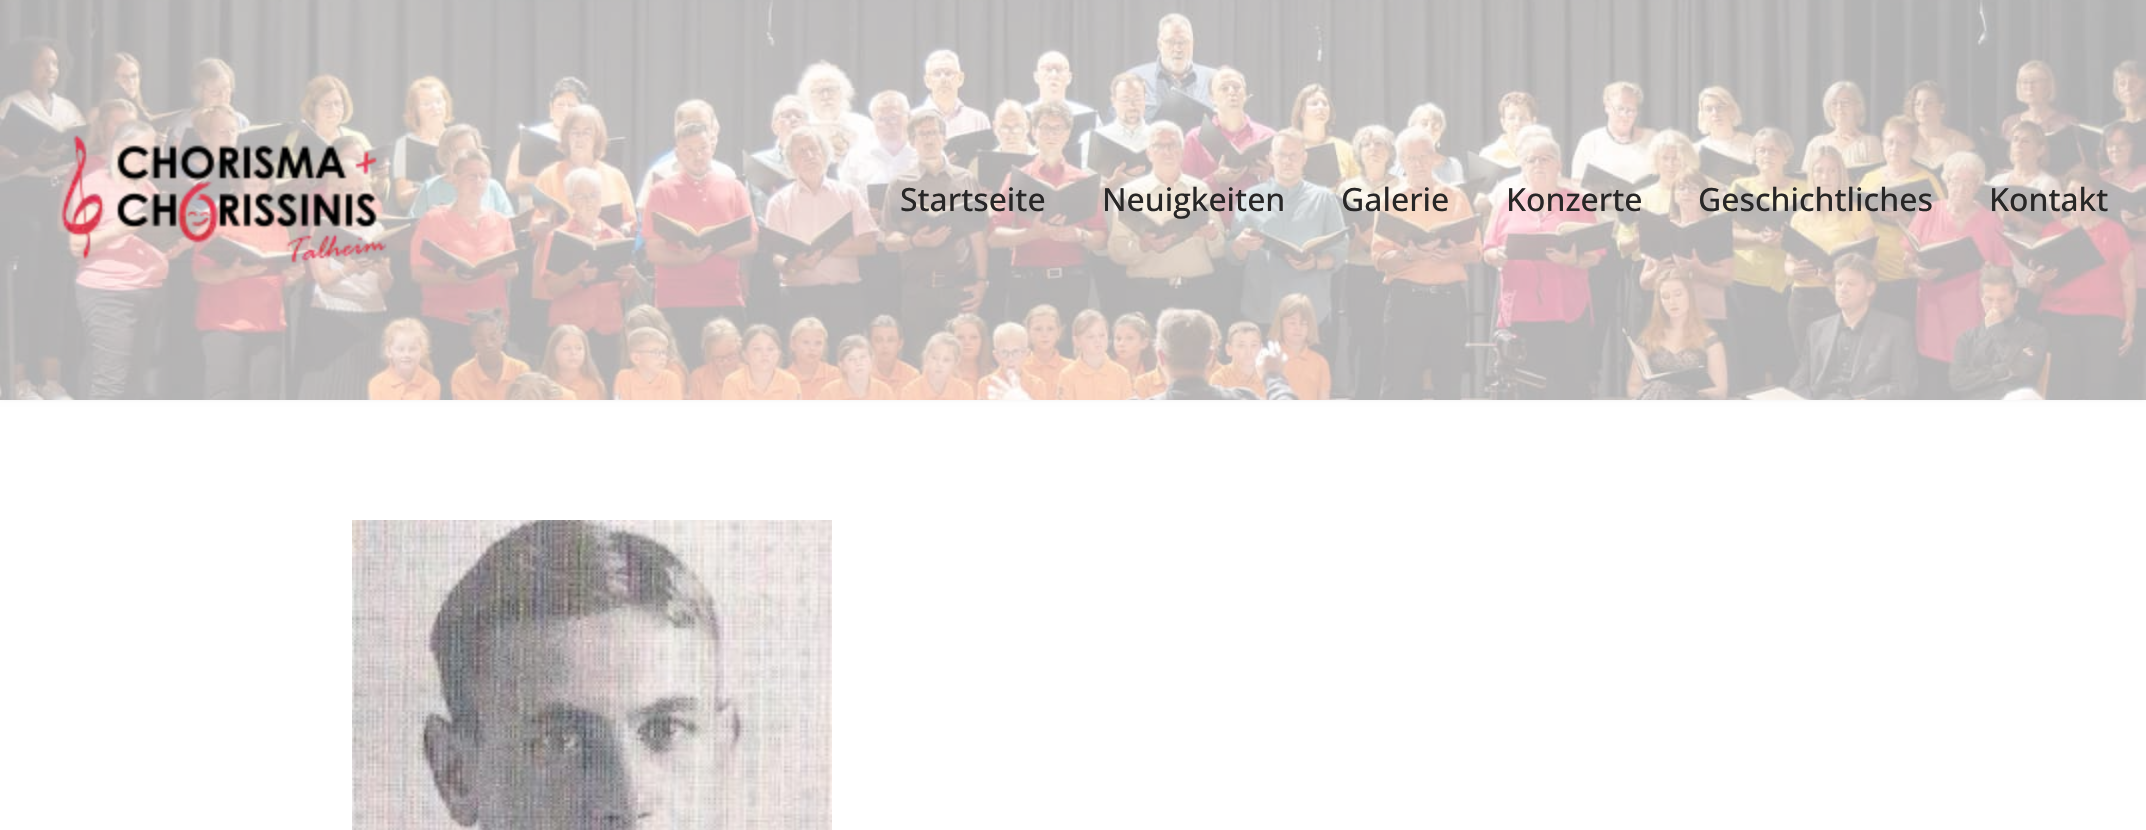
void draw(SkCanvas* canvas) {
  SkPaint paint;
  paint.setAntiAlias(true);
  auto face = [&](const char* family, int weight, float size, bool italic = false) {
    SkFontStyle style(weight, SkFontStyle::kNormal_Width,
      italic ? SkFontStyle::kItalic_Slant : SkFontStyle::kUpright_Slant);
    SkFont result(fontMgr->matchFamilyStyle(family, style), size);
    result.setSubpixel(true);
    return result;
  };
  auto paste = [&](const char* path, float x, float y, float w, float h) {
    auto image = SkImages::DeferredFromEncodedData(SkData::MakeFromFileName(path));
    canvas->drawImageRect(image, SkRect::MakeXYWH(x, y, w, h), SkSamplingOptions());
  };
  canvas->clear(0xffffffff);
  paint.setColor(0x1a000000);
  paint.setMaskFilter(SkMaskFilter::MakeBlur(kNormal_SkBlurStyle, 3));
  canvas->drawRect(SkRect::MakeXYWH(0, -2, 2146, 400), paint);
  paint.setMaskFilter(nullptr);
  paste("img/1.png", 0, 0, 2146, 400);
  paste("img/2.png", 61, 135, 326, 128);
  paste("img/3.png", 352, 520, 480, 310);
  auto f0 = face("Open Sans", 500, 32);
  paint.setColor(0xff272626);
  {
    const struct { const char* s; float x, y; } items[] = {
      {"Startseite", 900, 211},
      {"Neuigkeiten", 1102, 211},
      {"Galerie", 1341, 211},
      {"Konzerte", 1506, 211},
      {"Geschichtliches", 1698, 211},
      {"Kontakt", 1989, 211},
    };
    for (auto [s, x, y] : items) {
      canvas->drawString(s, x, y, f0, paint);
    }
  }
}
